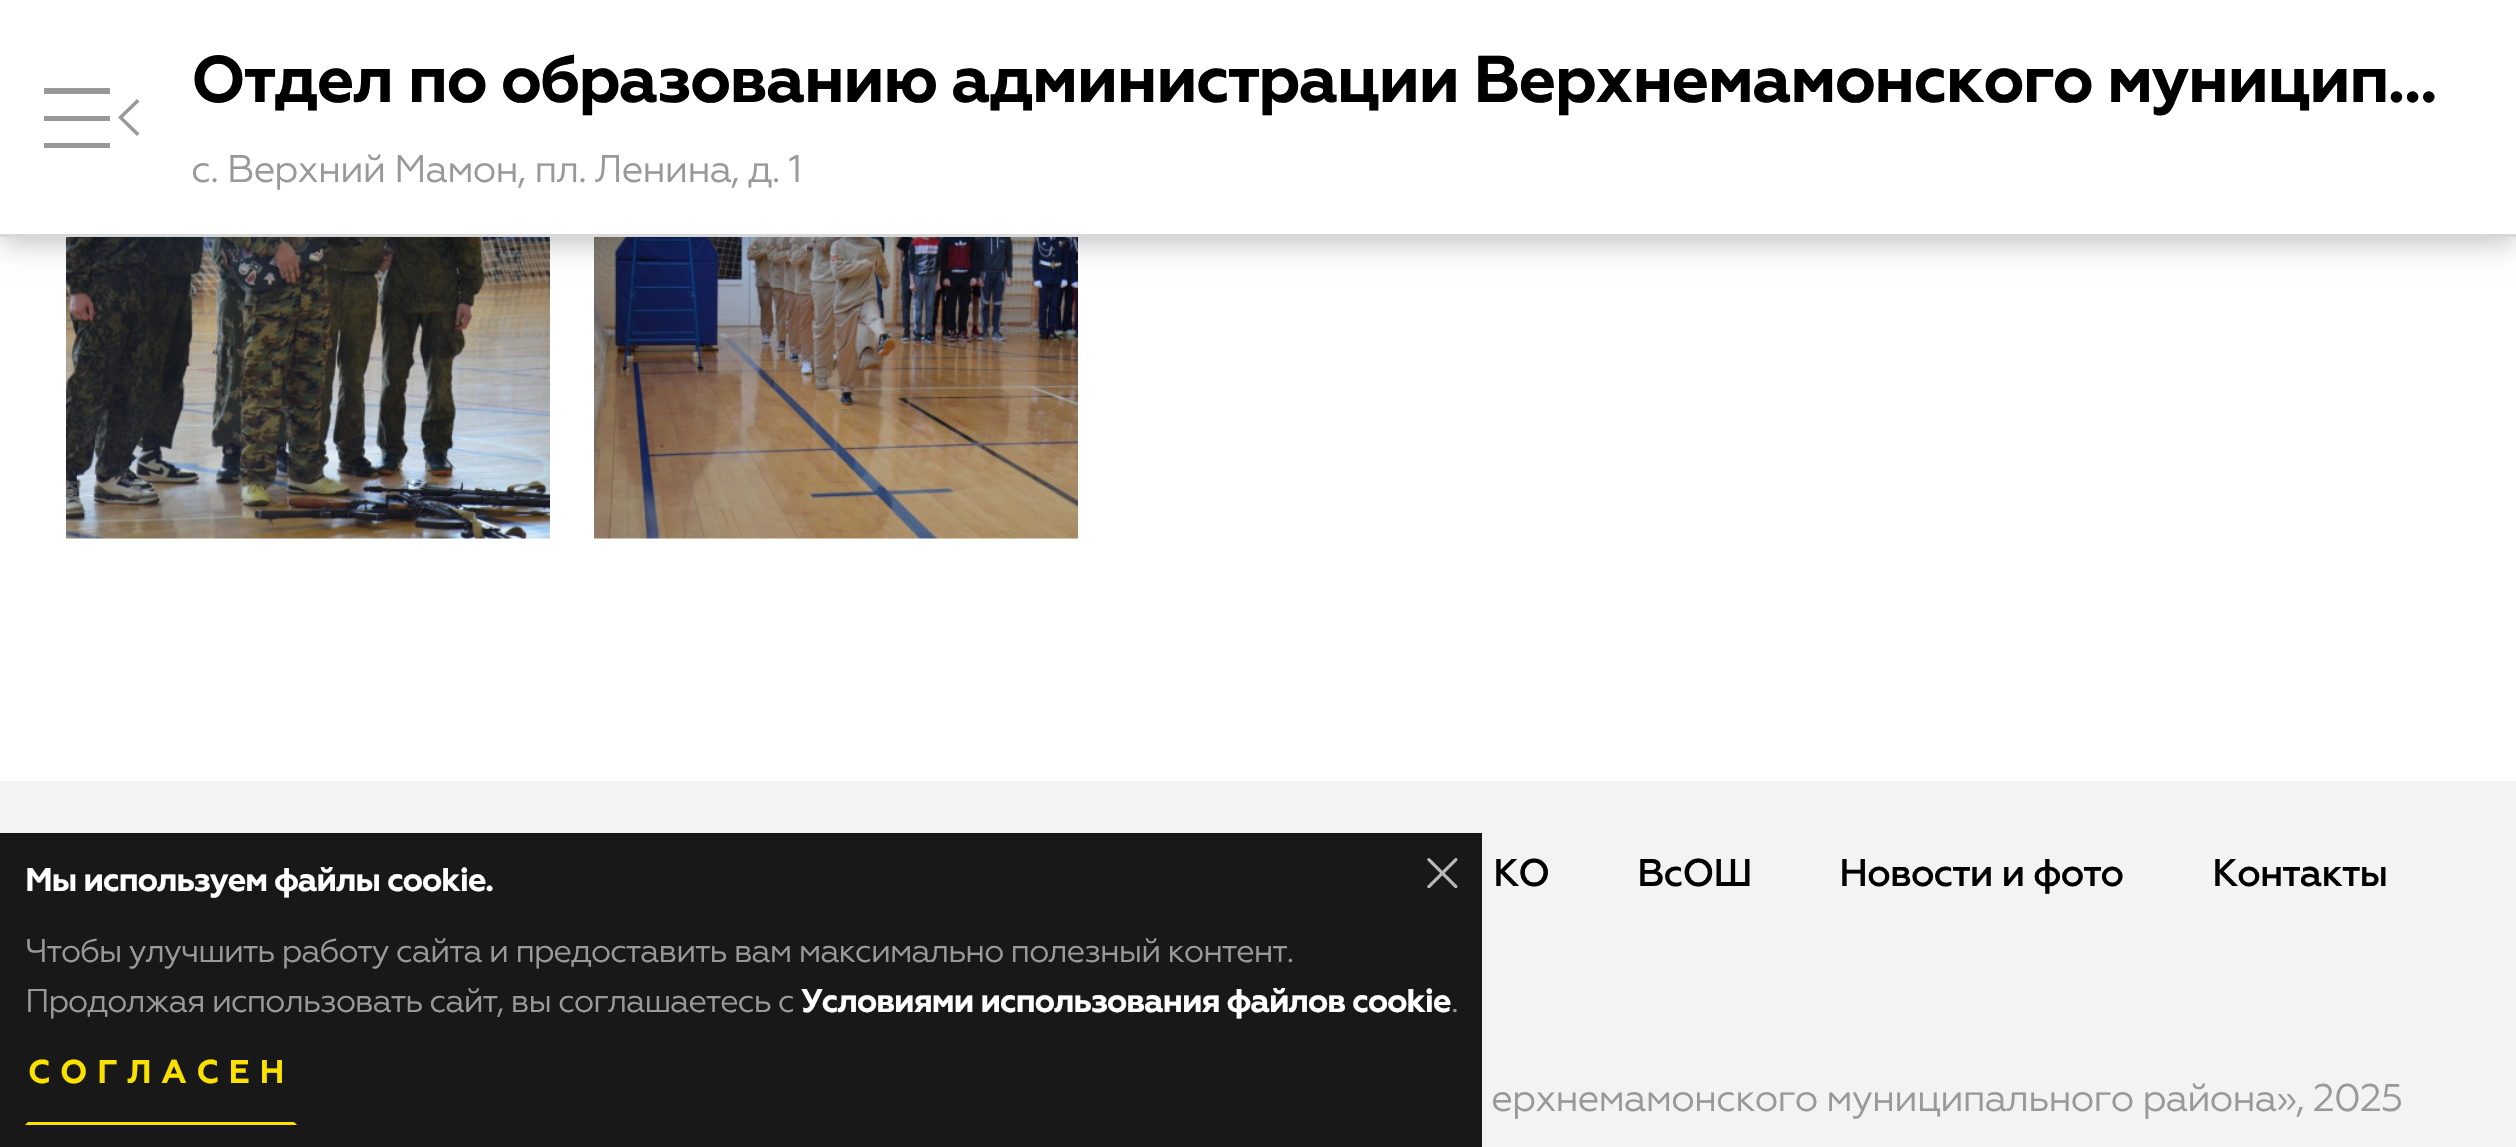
void draw(SkCanvas* canvas) {
  SkPaint paint;
  paint.setAntiAlias(true);
  auto face = [&](const char* family, int weight, float size, bool italic = false) {
    SkFontStyle style(weight, SkFontStyle::kNormal_Width,
      italic ? SkFontStyle::kItalic_Slant : SkFontStyle::kUpright_Slant);
    SkFont result(fontMgr->matchFamilyStyle(family, style), size);
    result.setSubpixel(true);
    return result;
  };
  auto writeSpaced = [&](const char* s, float x, float y, const SkFont& font, const SkPaint& ink, float letter, float word) {
    std::vector<SkGlyphID> glyphs(font.countText(s, strlen(s), SkTextEncoding::kUTF8));
    std::vector<float> xs(glyphs.size());
    font.textToGlyphs(s, strlen(s), SkTextEncoding::kUTF8, glyphs);
    font.getXPos(glyphs, xs, x);
    float extra = 0;
    for (size_t i = 0; i < glyphs.size(); i++) {
      xs[i] += extra;
      extra += letter + word * (glyphs[i] == font.unicharToGlyph(' '));
    }
    canvas->drawTextBlob(SkTextBlob::MakeFromPosHGlyphs(glyphs, xs, y, font), 0, 0, ink);
  };
  auto paste = [&](const char* path, float x, float y, float w, float h) {
    auto image = SkImages::DeferredFromEncodedData(SkData::MakeFromFileName(path));
    canvas->drawImageRect(image, SkRect::MakeXYWH(x, y, w, h), SkSamplingOptions());
  };
  auto shape = [&](const char* data, bool evenOdd = false) {
    SkPath result = *SkParsePath::FromSVGString(data);
    if (evenOdd) result.setFillType(SkPathFillType::kEvenOdd);
    return result;
  };
  canvas->clear(0xffffffff);
  paste("img/1.png", 66, 237, 484, 302);
  paste("img/2.png", 594, 237, 484, 302);
  paint.setColor(0x40000000);
  paint.setMaskFilter(SkMaskFilter::MakeBlur(kNormal_SkBlurStyle, 14));
  canvas->drawRect(SkRect::MakeXYWH(0, 6, 2516, 236), paint);
  paint.setMaskFilter(nullptr);
  paint.setColor(0xffffffff);
  canvas->drawRect(SkRect::MakeXYWH(0, 0, 2516, 234), paint);
  paint.setColor(0xffd8d8d8);
  canvas->drawRect(SkRect::MakeXYWH(0, 234, 2516, 3), paint);
  paint.setColor(0xff999999);
  canvas->drawPath(shape("M44 88H110V94H44ZM44 116H110V121H44ZM44 143H110V148H44Z"), paint);
  canvas->drawPath(shape("M139.5 101.5L137 99L118 117.5L137 136L139.5 133.5L123 117.5Z"), paint);
  paint.setColor(0xfff3f3f3);
  canvas->drawRect(SkRect::MakeXYWH(0, 781, 2516, 366), paint);
  paint.setColor(0xe6000000);
  canvas->drawRect(SkRect::MakeXYWH(0, 833, 1482, 314), paint);
  paste("img/3.png", 1427, 858, 31, 30);
  paint.setColor(0xfffbe100);
  canvas->drawPath(shape("M297 1125H25L28 1122H294Z"), paint);
  auto f0 = face("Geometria", 700, 66);
  paint.setColor(0xff000000);
  writeSpaced("Отдел по образованию администрации Верхнемамонского муницип…", 191, 102, f0, paint, -1.92f, 0);
  auto f1 = face("Geometria", 400, 38.5f);
  paint.setColor(0xff999999);
  writeSpaced("с. Верхний Мамон, пл. Ленина, д. 1", 191, 182, f1, paint, -1.25f, 0);
  auto f2 = face("Geometria", 700, 33);
  paint.setColor(0xffffffff);
  writeSpaced("Мы используем файлы cookie.", 25, 891, f2, paint, -1.38f, 0);
  auto f3 = face("Geometria", 400, 33);
  paint.setColor(0xff999999);
  writeSpaced("Чтобы улучшить работу сайта и предоставить вам максимально полезный контент.", 25, 962, f3, paint, -1.38f, 0);
  writeSpaced("Продолжая использовать сайт, вы соглашаетесь с", 25, 1012, f3, paint, -1.38f, 0);
  paint.setColor(0xffffffff);
  writeSpaced("Условиями использования файлов cookie", 801, 1012, f2, paint, -1.38f, 0);
  paint.setColor(0xff999999);
  writeSpaced(".", 1451, 1012, f3, paint, -1.38f, 0);
  paint.setColor(0xfffbe100);
  writeSpaced("СОГЛАСЕН", 28, 1083, f2, paint, 9.75f, 0);
  auto f4 = face("Geometria", 500, 38.5f);
  paint.setColor(0xff000000);
  {
    const struct { const char* s; float x, y; } items[] = {
      {"КО", 1493, 886},
      {"ВсОШ", 1637, 886},
      {"Новости и фото", 1839, 886},
      {"Контакты", 2212, 886},
    };
    for (auto [s, x, y] : items) {
      writeSpaced(s, x, y, f4, paint, -1.25f, 0);
    }
  }
  paint.setColor(0xff999999);
  writeSpaced("ерхнемамонского муниципального района», 2025", 1491, 1111, f1, paint, -1.25f, 0);
}
